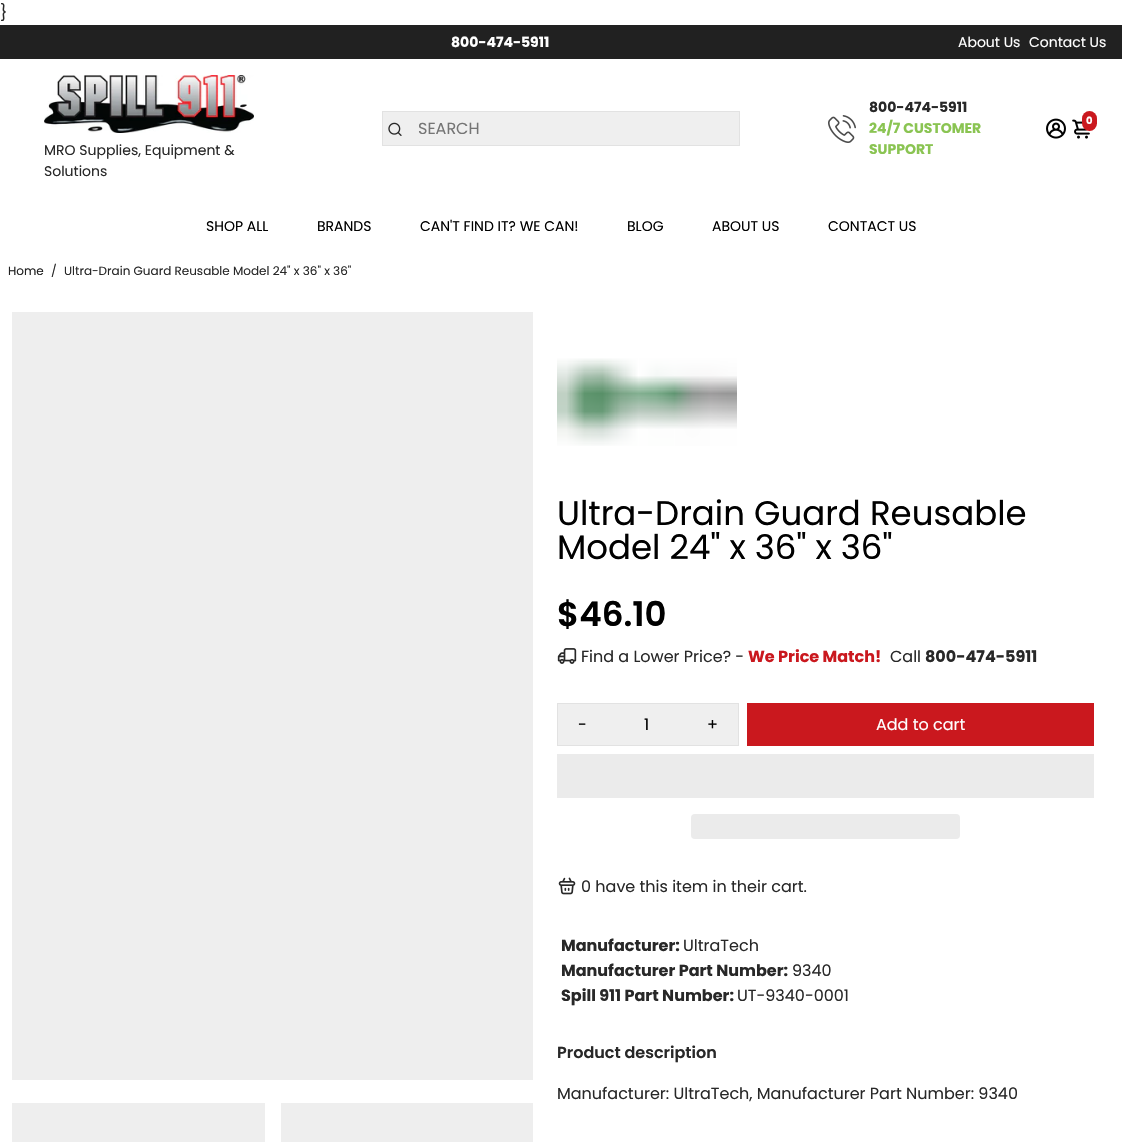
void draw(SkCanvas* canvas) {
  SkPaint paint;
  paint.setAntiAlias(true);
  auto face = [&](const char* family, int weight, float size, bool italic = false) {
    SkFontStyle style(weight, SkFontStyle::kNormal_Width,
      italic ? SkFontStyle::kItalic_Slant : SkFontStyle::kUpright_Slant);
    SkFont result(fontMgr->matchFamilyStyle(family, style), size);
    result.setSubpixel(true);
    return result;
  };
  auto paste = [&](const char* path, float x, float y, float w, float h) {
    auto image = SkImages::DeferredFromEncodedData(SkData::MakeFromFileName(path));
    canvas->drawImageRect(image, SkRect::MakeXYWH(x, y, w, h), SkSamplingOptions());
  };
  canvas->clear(0xffffffff);
  paint.setColor(0xff212121);
  canvas->drawRect(SkRect::MakeXYWH(0, 25, 1122, 34), paint);
  paint.setColor(0xffefefef);
  canvas->drawRect(SkRect::MakeXYWH(382.5f, 111.5f, 357, 34), paint);
  paint.setStroke(true);
  paint.setStrokeWidth(1);
  paint.setColor(0xffe2e2e2);
  canvas->drawRect(SkRect::MakeXYWH(382.5f, 111.5f, 357, 34), paint);
  paste("img/1.png", 388, 122, 14, 14);
  paste("img/2.png", 828, 115, 28, 28);
  paste("img/3.png", 1046, 118, 20, 21);
  paste("img/4.png", 1072, 119, 18, 20);
  paint.setStroke(false);
  paint.setColor(0xffca181e);
  canvas->drawRoundRect(SkRect::MakeXYWH(1082, 111, 15, 20), 7.5f, 7.5f, paint);
  paste("img/5.png", 44, 75, 210, 58);
  {
    const struct { float x, y, w, h; SkColor color; } items[] = {
      {12, 312, 521, 768, 0xffeeeeee},
      {12, 1103, 253, 39, 0xffeeeeee},
      {281, 1103, 252, 39, 0xffeeeeee},
    };
    for (auto [x, y, w, h, color] : items) {
      paint.setColor(color);
      canvas->drawRect(SkRect::MakeXYWH(x, y, w, h), paint);
    }
  }
  paste("img/6.png", 557, 358, 180, 88);
  paste("img/7.png", 557, 648, 20, 16);
  paint.setStroke(true);
  paint.setColor(0xffe2e2e2);
  canvas->drawRect(SkRect::MakeXYWH(557.5f, 703.5f, 181, 42), paint);
  paint.setStroke(false);
  {
    const struct { float x, y, w, h; SkColor color; } items[] = {
      {558, 704, 180, 41, 0xffefefef},
      {747, 703, 347, 43, 0xffca181e},
      {557, 754, 537, 44, 0xffebebeb},
    };
    for (auto [x, y, w, h, color] : items) {
      paint.setColor(color);
      canvas->drawRect(SkRect::MakeXYWH(x, y, w, h), paint);
    }
  }
  canvas->drawRoundRect(SkRect::MakeXYWH(691, 814, 269, 25), 4, 4, paint);
  paste("img/8.png", 558, 877, 18, 18);
  auto f0 = face("Poppins", 400, 16);
  paint.setColor(0xff282828);
  canvas->drawString("}", 0, 18, f0, paint);
  auto f1 = face("Poppins", 700, 14);
  paint.setColor(0xffffffff);
  canvas->drawString("800-474-5911", 451, 47, f1, paint);
  auto f2 = face("Poppins", 400, 14);
  canvas->drawString("About Us", 958, 47, f2, paint);
  canvas->drawString("Contact Us", 1029, 47, f2, paint);
  paint.setColor(0xff757575);
  canvas->drawString("SEARCH", 418, 134, f0, paint);
  paint.setColor(0xff282828);
  canvas->drawString("800-474-5911", 869, 112, f1, paint);
  paint.setColor(0xff8ac452);
  canvas->drawString("24/7 CUSTOMER", 869, 133, f1, paint);
  canvas->drawString("SUPPORT", 869, 154, f1, paint);
  auto f3 = face("Poppins", 700, 10);
  paint.setColor(0xffffffff);
  canvas->drawString("0", 1086, 124, f3, paint);
  paint.setColor(0xff282828);
  canvas->drawString("MRO Supplies, Equipment &", 44, 155, f2, paint);
  canvas->drawString("Solutions", 44, 176, f2, paint);
  paint.setColor(0xff000000);
  {
    const struct { const char* s; float x, y; } items[] = {
      {"SHOP ALL", 206, 231},
      {"BRANDS", 317, 231},
      {"CAN'T FIND IT? WE CAN!", 420, 231},
      {"BLOG", 627, 231},
      {"ABOUT US", 712, 231},
      {"CONTACT US", 828, 231},
    };
    for (auto [s, x, y] : items) {
      canvas->drawString(s, x, y, f2, paint);
    }
  }
  auto f4 = face("Poppins", 400, 12);
  paint.setColor(0xff212121);
  canvas->drawString("Home", 8, 275, f4, paint);
  paint.setColor(0xff282828);
  canvas->drawString("/", 51, 275, f4, paint);
  canvas->drawString("Ultra-Drain Guard Reusable Model 24\" x 36\" x 36\"", 64, 275, f4, paint);
  auto f5 = face("Poppins", 400, 34);
  paint.setColor(0xff000000);
  canvas->drawString("Ultra-Drain Guard Reusable", 557, 525, f5, paint);
  canvas->drawString("Model 24\" x 36\" x 36\"", 557, 559, f5, paint);
  auto f6 = face("Poppins", 600, 34);
  canvas->drawString("$46.10", 557, 626, f6, paint);
  paint.setColor(0xff282828);
  canvas->drawString("Find a Lower Price? -", 581, 662, f0, paint);
  auto f7 = face("Poppins", 700, 16);
  paint.setColor(0xffca181e);
  canvas->drawString("We Price Match!", 748, 662, f7, paint);
  paint.setColor(0xff282828);
  canvas->drawString("Call", 890, 662, f0, paint);
  canvas->drawString("800-474-5911", 925, 662, f7, paint);
  paint.setColor(0xff000000);
  {
    const struct { const char* s; float x, y; } items[] = {
      {"-", 578, 730},
      {"1", 644, 730},
      {"+", 707, 730},
    };
    for (auto [s, x, y] : items) {
      canvas->drawString(s, x, y, f0, paint);
    }
  }
  paint.setColor(0xffffffff);
  canvas->drawString("Add to cart", 876, 730, f0, paint);
  paint.setColor(0xff282828);
  canvas->drawString("0 have this item in their cart.", 581, 892, f0, paint);
  canvas->drawString("Manufacturer:", 561, 951, f7, paint);
  canvas->drawString("UltraTech", 683, 951, f0, paint);
  canvas->drawString("Manufacturer Part Number:", 561, 976, f7, paint);
  canvas->drawString("9340", 792, 976, f0, paint);
  canvas->drawString("Spill 911 Part Number:", 561, 1001, f7, paint);
  canvas->drawString("UT-9340-0001", 737, 1001, f0, paint);
  auto f8 = face("Poppins", 600, 16);
  canvas->drawString("Product description", 557, 1058, f8, paint);
  canvas->drawString("Manufacturer: UltraTech, Manufacturer Part Number: 9340", 557, 1099, f0, paint);
}
